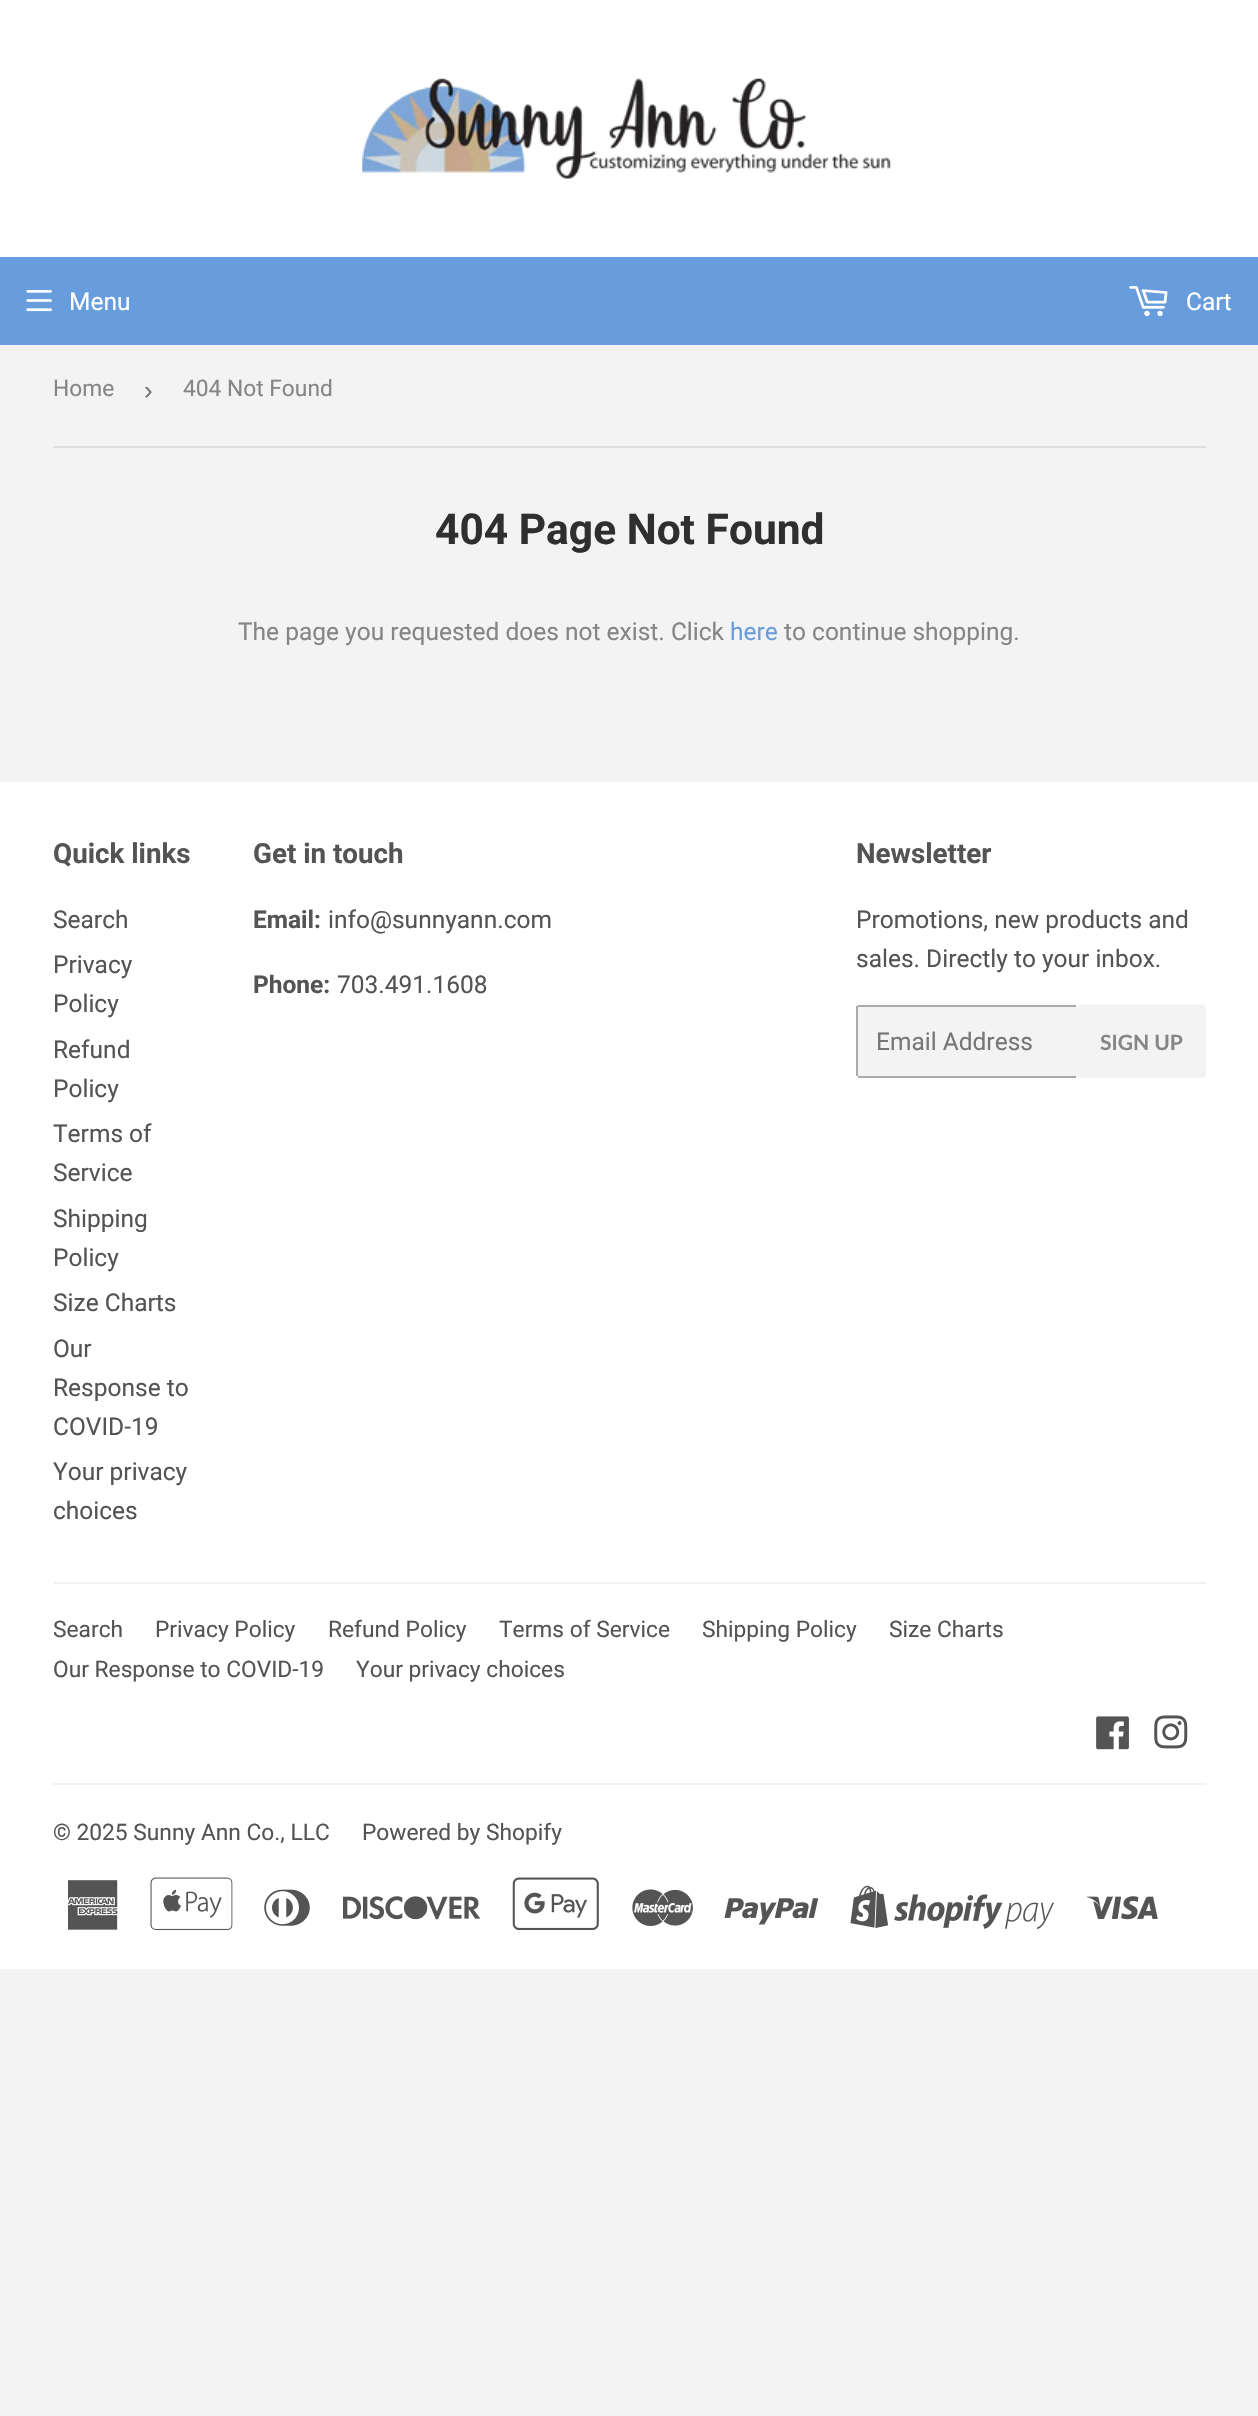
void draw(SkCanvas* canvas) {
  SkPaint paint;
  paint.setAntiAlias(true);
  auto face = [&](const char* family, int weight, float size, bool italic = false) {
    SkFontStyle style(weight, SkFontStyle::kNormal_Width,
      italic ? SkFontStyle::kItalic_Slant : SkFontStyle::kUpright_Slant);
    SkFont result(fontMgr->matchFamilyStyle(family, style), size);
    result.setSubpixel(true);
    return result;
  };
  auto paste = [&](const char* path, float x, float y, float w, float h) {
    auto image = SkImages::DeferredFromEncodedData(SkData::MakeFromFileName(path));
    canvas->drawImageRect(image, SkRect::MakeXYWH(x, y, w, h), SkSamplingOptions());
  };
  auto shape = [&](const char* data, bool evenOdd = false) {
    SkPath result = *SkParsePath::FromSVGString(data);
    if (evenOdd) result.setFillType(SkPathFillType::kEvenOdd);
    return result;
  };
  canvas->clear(0xfff3f3f3);
  paint.setColor(0xffffffff);
  canvas->drawRect(SkRect::MakeXYWH(0, 0, 1258, 257), paint);
  paste("img/1.png", 362, 78, 529, 101);
  paint.setColor(0xff679ddc);
  canvas->drawRect(SkRect::MakeXYWH(0, 257, 1258, 88), paint);
  paste("img/2.png", 26, 290, 26, 22);
  paste("img/3.png", 1129, 286, 39, 31);
  paint.setColor(0xffdedede);
  canvas->drawRect(SkRect::MakeXYWH(53, 446, 1153, 2), paint);
  paint.setColor(0xffffffff);
  canvas->drawRect(SkRect::MakeXYWH(0, 782, 1258, 1187), paint);
  paint.setColor(0xfff3f3f3);
  canvas->drawRoundRect(SkRect::MakeXYWH(856, 1005, 222, 73), 4, 4, paint);
  {
    const struct { float x, y, w, h; SkColor color; } items[] = {
      {858, 1005, 218, 2, 0xffababab},
      {858, 1076, 218, 2, 0xffababab},
      {856, 1006, 2, 70, 0xffababab},
    };
    for (auto [x, y, w, h, color] : items) {
      paint.setColor(color);
      canvas->drawRect(SkRect::MakeXYWH(x, y, w, h), paint);
    }
  }
  paint.setColor(0xfff3f3f3);
  canvas->drawPath(shape("M1078 1005H1202C1204 1005 1206 1007 1206 1009V1074C1206 1076 1204 1078 1202 1078H1078Z"), paint);
  paint.setColor(0xfff2f2f2);
  canvas->drawRect(SkRect::MakeXYWH(53, 1582, 1153, 2), paint);
  paste("img/4.png", 1096, 1716, 33, 34);
  paste("img/5.png", 1154, 1715, 34, 34);
  canvas->drawRect(SkRect::MakeXYWH(53, 1783, 1153, 2), paint);
  paste("img/6.png", 68, 1880, 50, 50);
  paste("img/7.png", 150, 1877, 83, 53);
  paste("img/8.png", 264, 1889, 46, 37);
  paste("img/9.png", 343, 1896, 138, 24);
  paste("img/10.png", 512, 1877, 87, 53);
  paste("img/11.png", 632, 1889, 61, 37);
  paste("img/12.png", 724, 1898, 95, 27);
  paste("img/13.png", 850, 1885, 204, 45);
  paste("img/14.png", 1086, 1896, 72, 24);
  auto f0 = face("Roboto", 400, 24.5f);
  paint.setColor(0xffffffff);
  canvas->drawString("Menu", 69, 310, f0, paint);
  canvas->drawString("Cart", 1186, 310, f0, paint);
  auto f1 = face("Roboto", 400, 22.75f);
  paint.setColor(0xff858585);
  canvas->drawString("Home", 53, 396, f1, paint);
  auto f2 = face("Liberation Sans", 400, 26);
  paint.setColor(0xff767676);
  canvas->drawString("›", 144, 399, f2, paint);
  paint.setColor(0xff858585);
  canvas->drawString("404 Not Found", 183, 396, f1, paint);
  auto f3 = face("Roboto", 700, 42.5f);
  paint.setColor(0xff2f2f2f);
  canvas->drawString("404 Page Not Found", 435, 544, f3, paint);
  paint.setColor(0xff858585);
  canvas->drawString("The page you requested does not exist. Click", 238, 640, f0, paint);
  paint.setColor(0xff679ddc);
  canvas->drawString("here", 730, 640, f0, paint);
  paint.setColor(0xff858585);
  canvas->drawString("to continue shopping.", 784, 640, f0, paint);
  auto f4 = face("Roboto", 700, 27.75f);
  paint.setColor(0xff545454);
  canvas->drawString("Quick links", 53, 863, f4, paint);
  {
    const struct { const char* s; float x, y; } items[] = {
      {"Search", 53, 928},
      {"Privacy", 53, 973},
      {"Policy", 53, 1012},
      {"Refund", 53, 1058},
      {"Policy", 53, 1097},
      {"Terms of", 53, 1142},
      {"Service", 53, 1181},
      {"Shipping", 53, 1227},
      {"Policy", 53, 1266},
      {"Size Charts", 53, 1311},
      {"Our", 53, 1357},
      {"Response to", 53, 1396},
      {"COVID-19", 53, 1435},
      {"Your privacy", 53, 1480},
      {"choices", 53, 1519},
    };
    for (auto [s, x, y] : items) {
      canvas->drawString(s, x, y, f0, paint);
    }
  }
  canvas->drawString("Get in touch", 253, 863, f4, paint);
  auto f5 = face("Roboto", 700, 24.5f);
  canvas->drawString("Email:", 253, 928, f5, paint);
  canvas->drawString("info@sunnyann.com", 328, 928, f0, paint);
  canvas->drawString("Phone:", 253, 993, f5, paint);
  canvas->drawString("703.491.1608", 337, 993, f0, paint);
  canvas->drawString("Newsletter", 856, 863, f4, paint);
  canvas->drawString("Promotions, new products and", 856, 928, f0, paint);
  canvas->drawString("sales. Directly to your inbox.", 856, 967, f0, paint);
  paint.setColor(0xff767676);
  canvas->drawString("Email Address", 876, 1050, f0, paint);
  auto f6 = face("Lato", 700, 21);
  paint.setColor(0xff858585);
  canvas->drawString("SIGN UP", 1100, 1050, f6, paint);
  paint.setColor(0xff545454);
  {
    const struct { const char* s; float x, y; } items[] = {
      {"Search", 53, 1637},
      {"Privacy Policy", 155, 1637},
      {"Refund Policy", 328, 1637},
      {"Terms of Service", 499, 1637},
      {"Shipping Policy", 702, 1637},
      {"Size Charts", 889, 1637},
      {"Our Response to COVID-19", 53, 1677},
      {"Your privacy choices", 356, 1677},
      {"© 2025 Sunny Ann Co., LLC", 53, 1840},
      {"Powered by Shopify", 362, 1840},
    };
    for (auto [s, x, y] : items) {
      canvas->drawString(s, x, y, f1, paint);
    }
  }
}
